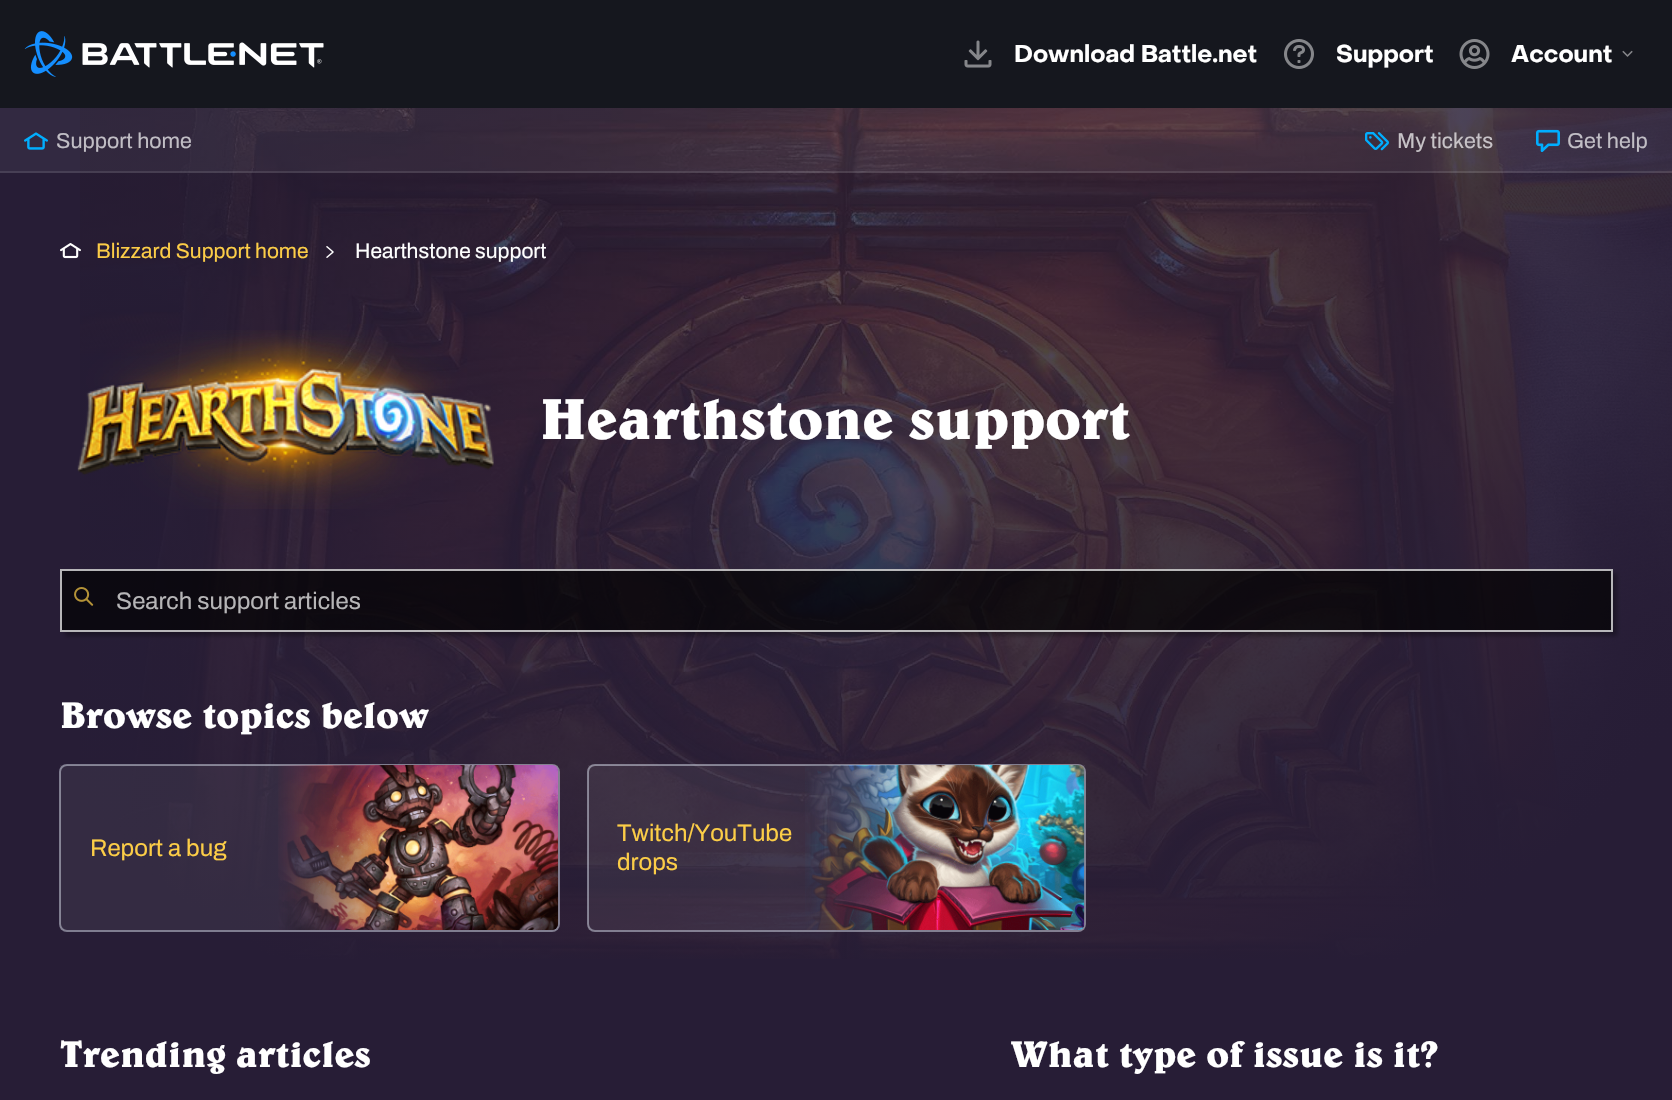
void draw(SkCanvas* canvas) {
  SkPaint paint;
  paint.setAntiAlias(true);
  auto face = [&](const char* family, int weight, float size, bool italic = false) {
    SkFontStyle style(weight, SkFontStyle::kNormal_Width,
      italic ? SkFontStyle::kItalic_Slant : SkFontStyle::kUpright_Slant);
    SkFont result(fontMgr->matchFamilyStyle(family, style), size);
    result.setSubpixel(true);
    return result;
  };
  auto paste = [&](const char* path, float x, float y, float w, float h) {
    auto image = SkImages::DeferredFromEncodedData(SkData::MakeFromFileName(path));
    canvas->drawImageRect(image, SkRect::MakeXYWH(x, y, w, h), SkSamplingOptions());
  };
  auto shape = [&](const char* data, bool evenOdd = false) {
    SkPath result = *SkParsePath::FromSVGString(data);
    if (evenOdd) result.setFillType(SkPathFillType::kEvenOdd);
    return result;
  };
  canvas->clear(0xff271d36);
  paint.setColor(0xff15171e);
  canvas->drawRect(SkRect::MakeXYWH(0, 0, 1672, 108), paint);
  paste("img/1.png", 24, 31, 300, 46);
  paste("img/2.png", 964, 40, 28, 28);
  paste("img/3.png", 1284, 39, 30, 30);
  paste("img/4.png", 1459, 39, 31, 30);
  paste("img/5.png", 1622, 50, 11, 7);
  paste("img/6.png", 80, 108, 1592, 851);
  paint.setColor(0x0dffffff);
  canvas->drawRect(SkRect::MakeXYWH(0, 108, 1672, 65), paint);
  paint.setColor(0x1affffff);
  canvas->drawRect(SkRect::MakeXYWH(0, 171, 1672, 2), paint);
  paste("img/7.png", 24, 132, 24, 18);
  paste("img/8.png", 1365, 132, 24, 19);
  paste("img/9.png", 1536, 129, 24, 23);
  paste("img/10.png", 60, 243, 21, 16);
  paste("img/11.png", 326, 246, 8, 12);
  paste("img/12.png", 77, 330, 417, 179);
  canvas->save();
  canvas->clipPath(shape("M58 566H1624V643H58ZM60 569H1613V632H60Z", true), true);
  paint.setColor(0x4d000000);
  paint.setMaskFilter(SkMaskFilter::MakeBlur(kNormal_SkBlurStyle, 2));
  canvas->drawRect(SkRect::MakeXYWH(65, 573, 1552, 63), paint);
  paint.setMaskFilter(nullptr);
  canvas->restore();
  paint.setColor(0xb3000000);
  canvas->drawRect(SkRect::MakeXYWH(60, 569, 1553, 63), paint);
  paint.setStroke(true);
  paint.setStrokeWidth(2);
  paint.setColor(0xb3ffffff);
  canvas->drawRect(SkRect::MakeXYWH(61, 570, 1551, 61), paint);
  paste("img/13.png", 74, 587, 20, 19);
  paint.setColor(0x80d6dcea);
  canvas->drawRoundRect(SkRect::MakeXYWH(60, 765, 499, 166), 7, 7, paint);
  paint.setStroke(false);
  paint.setColor(0x0fffffff);
  canvas->drawRect(SkRect::MakeXYWH(60, 765, 498, 165), paint);
  paste("img/14.png", 278, 765, 280, 165);
  paint.setStroke(true);
  paint.setColor(0x80d6dcea);
  canvas->drawRoundRect(SkRect::MakeXYWH(588, 765, 497, 166), 7, 7, paint);
  paint.setStroke(false);
  paint.setColor(0x0fffffff);
  canvas->drawRect(SkRect::MakeXYWH(588, 765, 497, 165), paint);
  paste("img/15.png", 805, 765, 280, 165);
  auto f0 = face("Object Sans", 700, 24);
  paint.setColor(0xffffffff);
  {
    const struct { const char* s; float x, y; } items[] = {
      {"Download Battle.net", 1014, 62},
      {"Support", 1336, 62},
      {"Account", 1511, 62},
    };
    for (auto [s, x, y] : items) {
      canvas->drawString(s, x, y, f0, paint);
    }
  }
  auto f1 = face("Archivo", 400, 21.5f);
  paint.setColor(0xffc1bec5);
  canvas->drawString("Support home", 56, 148, f1, paint);
  paint.setColor(0xffc7c3c7);
  canvas->drawString("My tickets", 1397, 148, f1, paint);
  paint.setColor(0xffc1bec5);
  canvas->drawString("Get help", 1567, 148, f1, paint);
  auto f2 = face("Archivo", 400, 21);
  paint.setColor(0xfffccd47);
  canvas->drawString("Blizzard Support home", 96, 258, f2, paint);
  paint.setColor(0xffffffff);
  canvas->drawString("Hearthstone support", 355, 258, f2, paint);
  auto f3 = face("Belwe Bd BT", 700, 58.5f);
  canvas->drawString("Hearthstone support", 540, 439, f3, paint);
  auto f4 = face("Archivo", 400, 24);
  paint.setColor(0xffb6b5b7);
  canvas->drawString("Search support articles", 116, 609, f4, paint);
  auto f5 = face("Belwe Bd BT", 700, 37.5f);
  paint.setColor(0xffffffff);
  canvas->drawString("Browse topics below", 60, 728, f5, paint);
  paint.setColor(0xfffccd47);
  {
    const struct { const char* s; float x, y; } items[] = {
      {"Report a bug", 90, 856},
      {"Twitch/YouTube", 617, 841},
      {"drops", 617, 870},
    };
    for (auto [s, x, y] : items) {
      canvas->drawString(s, x, y, f4, paint);
    }
  }
  paint.setColor(0xffffffff);
  canvas->drawString("Trending articles", 60, 1067, f5, paint);
  canvas->drawString("What type of issue is it?", 1011, 1067, f5, paint);
}
